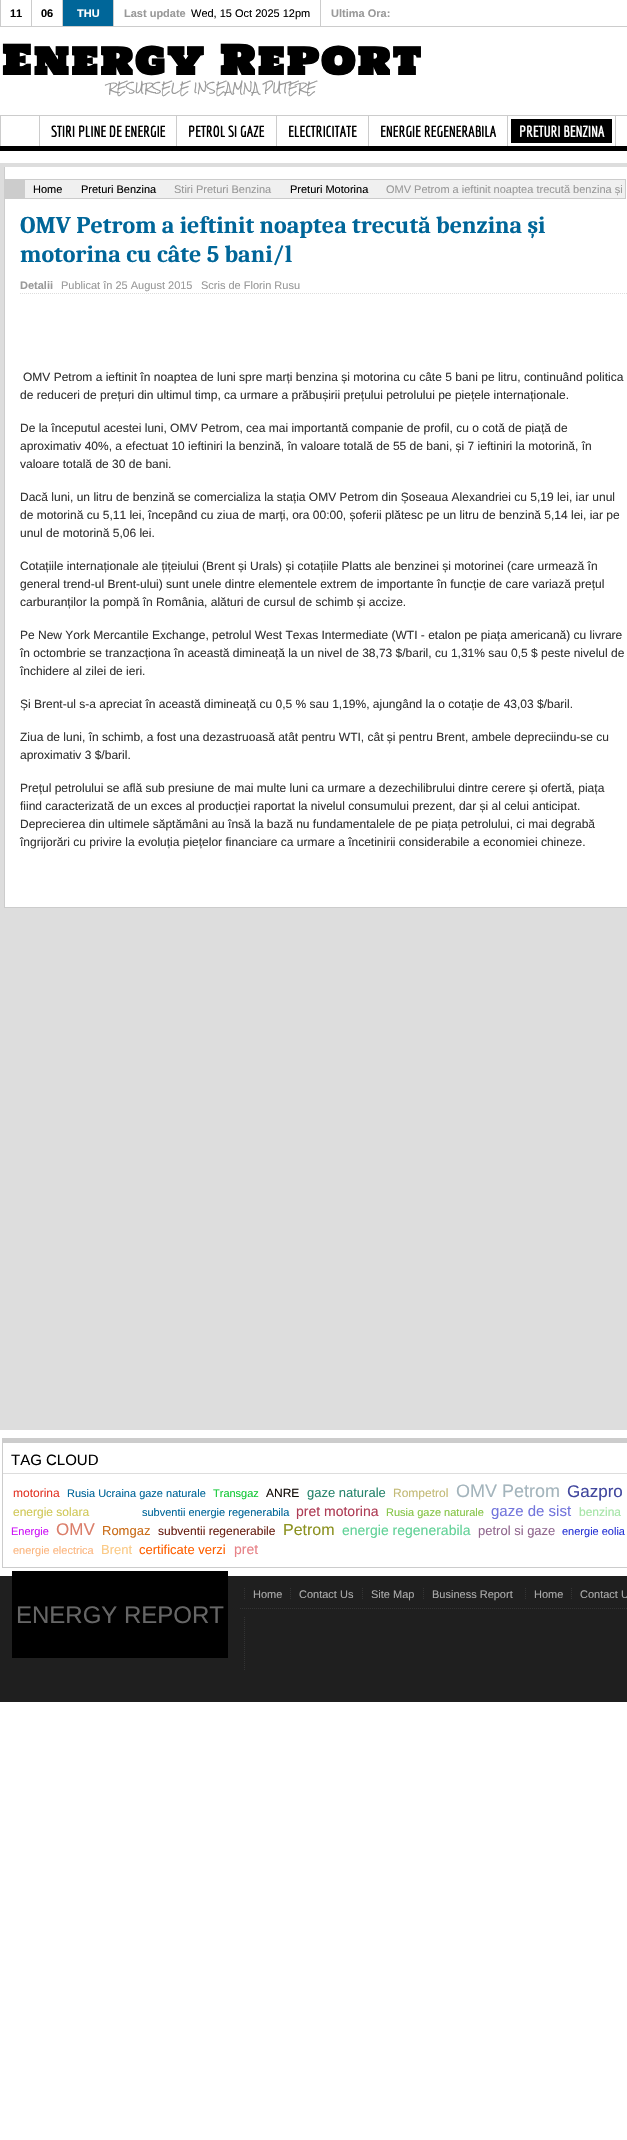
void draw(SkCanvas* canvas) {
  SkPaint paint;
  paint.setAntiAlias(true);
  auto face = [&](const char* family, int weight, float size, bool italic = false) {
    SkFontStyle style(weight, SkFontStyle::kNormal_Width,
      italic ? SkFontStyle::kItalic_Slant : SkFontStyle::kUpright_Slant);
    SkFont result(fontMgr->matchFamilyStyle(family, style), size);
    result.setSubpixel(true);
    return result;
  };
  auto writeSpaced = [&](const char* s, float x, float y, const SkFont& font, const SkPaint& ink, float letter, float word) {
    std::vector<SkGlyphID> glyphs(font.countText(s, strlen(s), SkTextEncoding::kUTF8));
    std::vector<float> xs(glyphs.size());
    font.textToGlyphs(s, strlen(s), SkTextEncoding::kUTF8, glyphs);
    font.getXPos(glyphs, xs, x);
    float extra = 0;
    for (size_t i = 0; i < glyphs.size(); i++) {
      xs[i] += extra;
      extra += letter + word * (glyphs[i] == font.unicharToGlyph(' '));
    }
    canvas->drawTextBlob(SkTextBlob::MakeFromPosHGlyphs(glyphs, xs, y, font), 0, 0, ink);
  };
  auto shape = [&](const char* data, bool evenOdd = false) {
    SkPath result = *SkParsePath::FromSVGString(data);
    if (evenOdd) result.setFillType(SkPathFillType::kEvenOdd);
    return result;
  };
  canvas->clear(0xffffffff);
  {
    const struct { float x, y, w, h; SkColor color; } items[] = {
      {0, 26, 627, 1, 0xffcccccc},
      {113, 0, 1, 26, 0xffcccccc},
      {0, 0, 1, 26, 0xffcccccc},
      {31, 0, 1, 26, 0xffcccccc},
      {62, 0, 1, 26, 0xffcccccc},
      {63, 0, 50, 26, 0xff006699},
      {320, 0, 1, 26, 0xffcccccc},
      {0, 115, 627, 1, 0xffcccccc},
      {0, 146, 627, 5, 0xff000000},
      {0, 116, 1, 30, 0xffcccccc},
      {39, 116, 1, 30, 0xffcccccc},
      {176, 116, 1, 30, 0xffcccccc},
      {276, 116, 1, 30, 0xffcccccc},
      {368, 116, 1, 30, 0xffcccccc},
      {507, 116, 1, 30, 0xffcccccc},
      {511, 119, 101, 24, 0xff000000},
      {615, 116, 1, 30, 0xffcccccc},
      {0, 163, 627, 1267, 0xffdddddd},
      {5, 167, 622, 740, 0xffffffff},
      {4, 907, 623, 1, 0xffcccccc},
      {4, 167, 1, 741, 0xffcccccc},
      {25, 180, 600, 18, 0xfff0f0f0},
      {25, 179, 601, 1, 0xffcccccc},
      {625, 179, 1, 20, 0xffcccccc},
      {25, 198, 601, 1, 0xffcccccc},
      {5, 179, 20, 20, 0xffcccccc},
    };
    for (auto [x, y, w, h, color] : items) {
      paint.setColor(color);
      canvas->drawRect(SkRect::MakeXYWH(x, y, w, h), paint);
    }
  }
  paint.setStroke(true);
  paint.setStrokeWidth(1);
  paint.setColor(0xffdddddd);
  paint.setPathEffect(SkDashPathEffect::Make({{1, 1}}, 0));
  canvas->drawPath(shape("M20 293.5H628"), paint);
  paint.setPathEffect(nullptr);
  paint.setColor(0xffcccccc);
  canvas->drawRect(SkRect::MakeXYWH(2.5f, 1438.5f, 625, 129), paint);
  paint.setStroke(false);
  {
    const struct { float x, y, w, h; SkColor color; } items[] = {
      {3, 1439, 624, 4, 0xffcccccc},
      {3, 1473, 624, 1, 0xffdddddd},
      {0, 1576, 627, 126, 0xff1f1f1f},
    };
    for (auto [x, y, w, h, color] : items) {
      paint.setColor(color);
      canvas->drawRect(SkRect::MakeXYWH(x, y, w, h), paint);
    }
  }
  paint.setStroke(true);
  paint.setColor(0xff333333);
  paint.setPathEffect(SkDashPathEffect::Make({{1, 1}}, 0));
  canvas->drawPath(shape("M240 1608.5H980"), paint);
  paint.setPathEffect(nullptr);
  paint.setPathEffect(SkDashPathEffect::Make({{1, 1}}, 0));
  canvas->drawPath(shape("M244.5 1588V1600"), paint);
  paint.setPathEffect(nullptr);
  paint.setPathEffect(SkDashPathEffect::Make({{1, 1}}, 0));
  canvas->drawPath(shape("M290.5 1588V1600"), paint);
  paint.setPathEffect(nullptr);
  paint.setPathEffect(SkDashPathEffect::Make({{1, 1}}, 0));
  canvas->drawPath(shape("M362.5 1588V1600"), paint);
  paint.setPathEffect(nullptr);
  paint.setPathEffect(SkDashPathEffect::Make({{1, 1}}, 0));
  canvas->drawPath(shape("M423.5 1588V1600"), paint);
  paint.setPathEffect(nullptr);
  paint.setPathEffect(SkDashPathEffect::Make({{1, 1}}, 0));
  canvas->drawPath(shape("M525.5 1588V1600"), paint);
  paint.setPathEffect(nullptr);
  paint.setPathEffect(SkDashPathEffect::Make({{1, 1}}, 0));
  canvas->drawPath(shape("M571.5 1588V1600"), paint);
  paint.setPathEffect(nullptr);
  paint.setStroke(false);
  paint.setColor(0xff000000);
  canvas->drawRect(SkRect::MakeXYWH(12, 1571, 216, 87), paint);
  paint.setStroke(true);
  paint.setColor(0xff333333);
  paint.setPathEffect(SkDashPathEffect::Make({{1, 1}}, 0));
  canvas->drawPath(shape("M244.5 1617V1670"), paint);
  paint.setPathEffect(nullptr);
  auto f0 = face("Liberation Sans", 700, 11);
  paint.setStroke(false);
  paint.setColor(0xff000000);
  canvas->drawString("11", 10, 17, f0, paint);
  canvas->drawString("06", 41, 17, f0, paint);
  paint.setColor(0xffffffff);
  canvas->drawString("THU", 77, 17, f0, paint);
  paint.setColor(0xff999999);
  canvas->drawString("Last update", 124, 17, f0, paint);
  auto f1 = face("Liberation Sans", 400, 11);
  paint.setColor(0xff000000);
  canvas->drawString("Wed, 15 Oct 2025 12pm", 191, 17, f1, paint);
  paint.setColor(0xff999999);
  canvas->drawString("Ultima Ora:", 331, 17, f0, paint);
  auto f2 = face("Holtwood One SC", 700, 40);
  paint.setColor(0xff000000);
  writeSpaced("Energy Report", 2, 75, f2, paint, 2, 0);
  auto f3 = face("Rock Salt", 400, 10.2f);
  paint.setColor(0xff999999);
  canvas->drawString("RESURSELE INSEAMNA PUTERE", 108, 92, f3, paint);
  auto f4 = face("Economica", 700, 15);
  paint.setColor(0xff000000);
  {
    const struct { const char* s; float x, y; } items[] = {
      {"STIRI PLINE DE ENERGIE", 51, 137},
      {"PETROL SI GAZE", 188, 137},
      {"ELECTRICITATE", 288, 137},
      {"ENERGIE REGENERABILA", 380, 137},
    };
    for (auto [s, x, y] : items) {
      canvas->drawString(s, x, y, f4, paint);
    }
  }
  paint.setColor(0xffffffff);
  canvas->drawString("PRETURI BENZINA", 519, 137, f4, paint);
  paint.setColor(0xff000000);
  canvas->drawString("Home", 33, 193, f1, paint);
  canvas->drawString("Preturi Benzina", 81, 193, f1, paint);
  paint.setColor(0xff999999);
  canvas->drawString("Stiri Preturi Benzina", 174, 193, f1, paint);
  paint.setColor(0xff000000);
  canvas->drawString("Preturi Motorina", 290, 193, f1, paint);
  paint.setColor(0xff999999);
  canvas->drawString("OMV Petrom a ieftinit noaptea trecută benzina și", 386, 193, f1, paint);
  auto f5 = face("Caladea", 700, 24);
  paint.setColor(0xff006699);
  canvas->drawString("OMV Petrom a ieftinit noaptea trecută benzina și", 20, 233, f5, paint);
  canvas->drawString("motorina cu câte 5 bani/l", 20, 262, f5, paint);
  paint.setColor(0xff999999);
  canvas->drawString("Detalii", 20, 289, f0, paint);
  canvas->drawString("Publicat în 25 August 2015", 61, 289, f1, paint);
  canvas->drawString("Scris de Florin Rusu", 201, 289, f1, paint);
  auto f6 = face("Liberation Sans", 400, 12);
  paint.setColor(0xff333333);
  {
    const struct { const char* s; float x, y; } items[] = {
      {"OMV Petrom a ieftinit în noaptea de luni spre marți benzina și motorina cu câte 5 bani pe litru, continuând politica", 23, 381},
      {"de reduceri de prețuri din ultimul timp, ca urmare a prăbușirii prețului petrolului pe piețele internaționale.", 20, 399},
      {"De la începutul acestei luni, OMV Petrom, cea mai importantă companie de profil, cu o cotă de piață de", 20, 432},
      {"aproximativ 40%, a efectuat 10 ieftiniri la benzină, în valoare totală de 55 de bani, și 7 ieftiniri la motorină, în", 20, 450},
      {"valoare totală de 30 de bani.", 20, 468},
      {"Dacă luni, un litru de benzină se comercializa la stația OMV Petrom din Șoseaua Alexandriei cu 5,19 lei, iar unul", 20, 501},
      {"de motorină cu 5,11 lei, începând cu ziua de marți, ora 00:00, șoferii plătesc pe un litru de benzină 5,14 lei, iar pe", 20, 519},
      {"unul de motorină 5,06 lei.", 20, 537},
      {"Cotațiile internaționale ale țițeiului (Brent și Urals) și cotațiile Platts ale benzinei și motorinei (care urmează în", 20, 570},
      {"general trend-ul Brent-ului) sunt unele dintre elementele extrem de importante în funcție de care variază prețul", 20, 588},
      {"carburanților la pompă în România, alături de cursul de schimb și accize.", 20, 606},
      {"Pe New York Mercantile Exchange, petrolul West Texas Intermediate (WTI - etalon pe piața americană) cu livrare", 20, 639},
      {"în octombrie se tranzacționa în această dimineață la un nivel de 38,73 $/baril, cu 1,31% sau 0,5 $ peste nivelul de", 20, 657},
      {"închidere al zilei de ieri.", 20, 675},
      {"Și Brent-ul s-a apreciat în această dimineață cu 0,5 % sau 1,19%, ajungând la o cotație de 43,03 $/baril.", 20, 708},
      {"Ziua de luni, în schimb, a fost una dezastruoasă atât pentru WTI, cât și pentru Brent, ambele depreciindu-se cu", 20, 741},
      {"aproximativ 3 $/baril.", 20, 759},
      {"Prețul petrolului se află sub presiune de mai multe luni ca urmare a dezechilibrului dintre cerere și ofertă, piața", 20, 792},
      {"fiind caracterizată de un exces al producției raportat la nivelul consumului prezent, dar și al celui anticipat.", 20, 810},
      {"Deprecierea din ultimele săptămâni au însă la bază nu fundamentalele de pe piața petrolului, ci mai degrabă", 20, 828},
      {"îngrijorări cu privire la evoluția piețelor financiare ca urmare a încetinirii considerabile a economiei chineze.", 20, 846},
    };
    for (auto [s, x, y] : items) {
      canvas->drawString(s, x, y, f6, paint);
    }
  }
  auto f7 = face("Liberation Sans", 400, 15);
  paint.setColor(0xff000000);
  canvas->drawString("TAG CLOUD", 11, 1465, f7, paint);
  paint.setColor(0xffe33728);
  canvas->drawString("motorina", 13, 1497, f6, paint);
  paint.setColor(0xff006699);
  canvas->drawString("Rusia Ucraina gaze naturale", 67, 1497, f1, paint);
  paint.setColor(0xff10c834);
  canvas->drawString("Transgaz", 213, 1497, f1, paint);
  paint.setColor(0xff120c08);
  canvas->drawString("ANRE", 266, 1497, f6, paint);
  auto f8 = face("Liberation Sans", 400, 13);
  paint.setColor(0xff27856d);
  canvas->drawString("gaze naturale", 307, 1497, f8, paint);
  paint.setColor(0xffc3ba76);
  canvas->drawString("Rompetrol", 393, 1497, f6, paint);
  auto f9 = face("Liberation Sans", 400, 18);
  paint.setColor(0xffa3b4bc);
  canvas->drawString("OMV Petrom", 456, 1497, f9, paint);
  auto f10 = face("Liberation Sans", 400, 17);
  paint.setColor(0xff41479e);
  canvas->drawString("Gazpro", 567, 1497, f10, paint);
  paint.setColor(0xffd1c95a);
  canvas->drawString("energie solara", 13, 1516, f6, paint);
  paint.setColor(0xff006699);
  canvas->drawString("subventii energie regenerabila", 142, 1516, f1, paint);
  auto f11 = face("Liberation Sans", 400, 14);
  paint.setColor(0xffae3c55);
  canvas->drawString("pret motorina", 296, 1516, f11, paint);
  paint.setColor(0xff86c547);
  canvas->drawString("Rusia gaze naturale", 386, 1516, f1, paint);
  paint.setColor(0xff7376dc);
  canvas->drawString("gaze de sist", 491, 1516, f7, paint);
  paint.setColor(0xffa6e5a8);
  canvas->drawString("benzina", 579, 1516, f6, paint);
  paint.setColor(0xffcc10f6);
  canvas->drawString("Energie", 11, 1535, f1, paint);
  paint.setColor(0xffdb7e6a);
  canvas->drawString("OMV", 56, 1535, f10, paint);
  paint.setColor(0xffca6c17);
  canvas->drawString("Romgaz", 102, 1535, f8, paint);
  paint.setColor(0xff6b2316);
  canvas->drawString("subventii regenerabile", 158, 1535, f6, paint);
  auto f12 = face("Liberation Sans", 400, 16);
  paint.setColor(0xff8c9221);
  canvas->drawString("Petrom", 283, 1535, f12, paint);
  paint.setColor(0xff62d298);
  canvas->drawString("energie regenerabila", 342, 1535, f11, paint);
  paint.setColor(0xff91688f);
  canvas->drawString("petrol si gaze", 478, 1535, f8, paint);
  paint.setColor(0xff2834d6);
  canvas->drawString("energie eolia", 562, 1535, f1, paint);
  paint.setColor(0xfffcb781);
  canvas->drawString("energie electrica", 13, 1554, f1, paint);
  paint.setColor(0xfffbca85);
  canvas->drawString("Brent", 101, 1554, f8, paint);
  paint.setColor(0xffff6001);
  canvas->drawString("certificate verzi", 139, 1554, f8, paint);
  paint.setColor(0xffe78287);
  canvas->drawString("pret", 234, 1554, f11, paint);
  paint.setColor(0xffaaaaaa);
  {
    const struct { const char* s; float x, y; } items[] = {
      {"Home", 253, 1598},
      {"Contact Us", 299, 1598},
      {"Site Map", 371, 1598},
      {"Business Report", 432, 1598},
      {"Home", 534, 1598},
      {"Contact U", 580, 1598},
    };
    for (auto [s, x, y] : items) {
      canvas->drawString(s, x, y, f1, paint);
    }
  }
  auto f13 = face("Liberation Sans", 400, 24);
  paint.setColor(0xff666666);
  canvas->drawString("ENERGY REPORT", 16, 1623, f13, paint);
}
